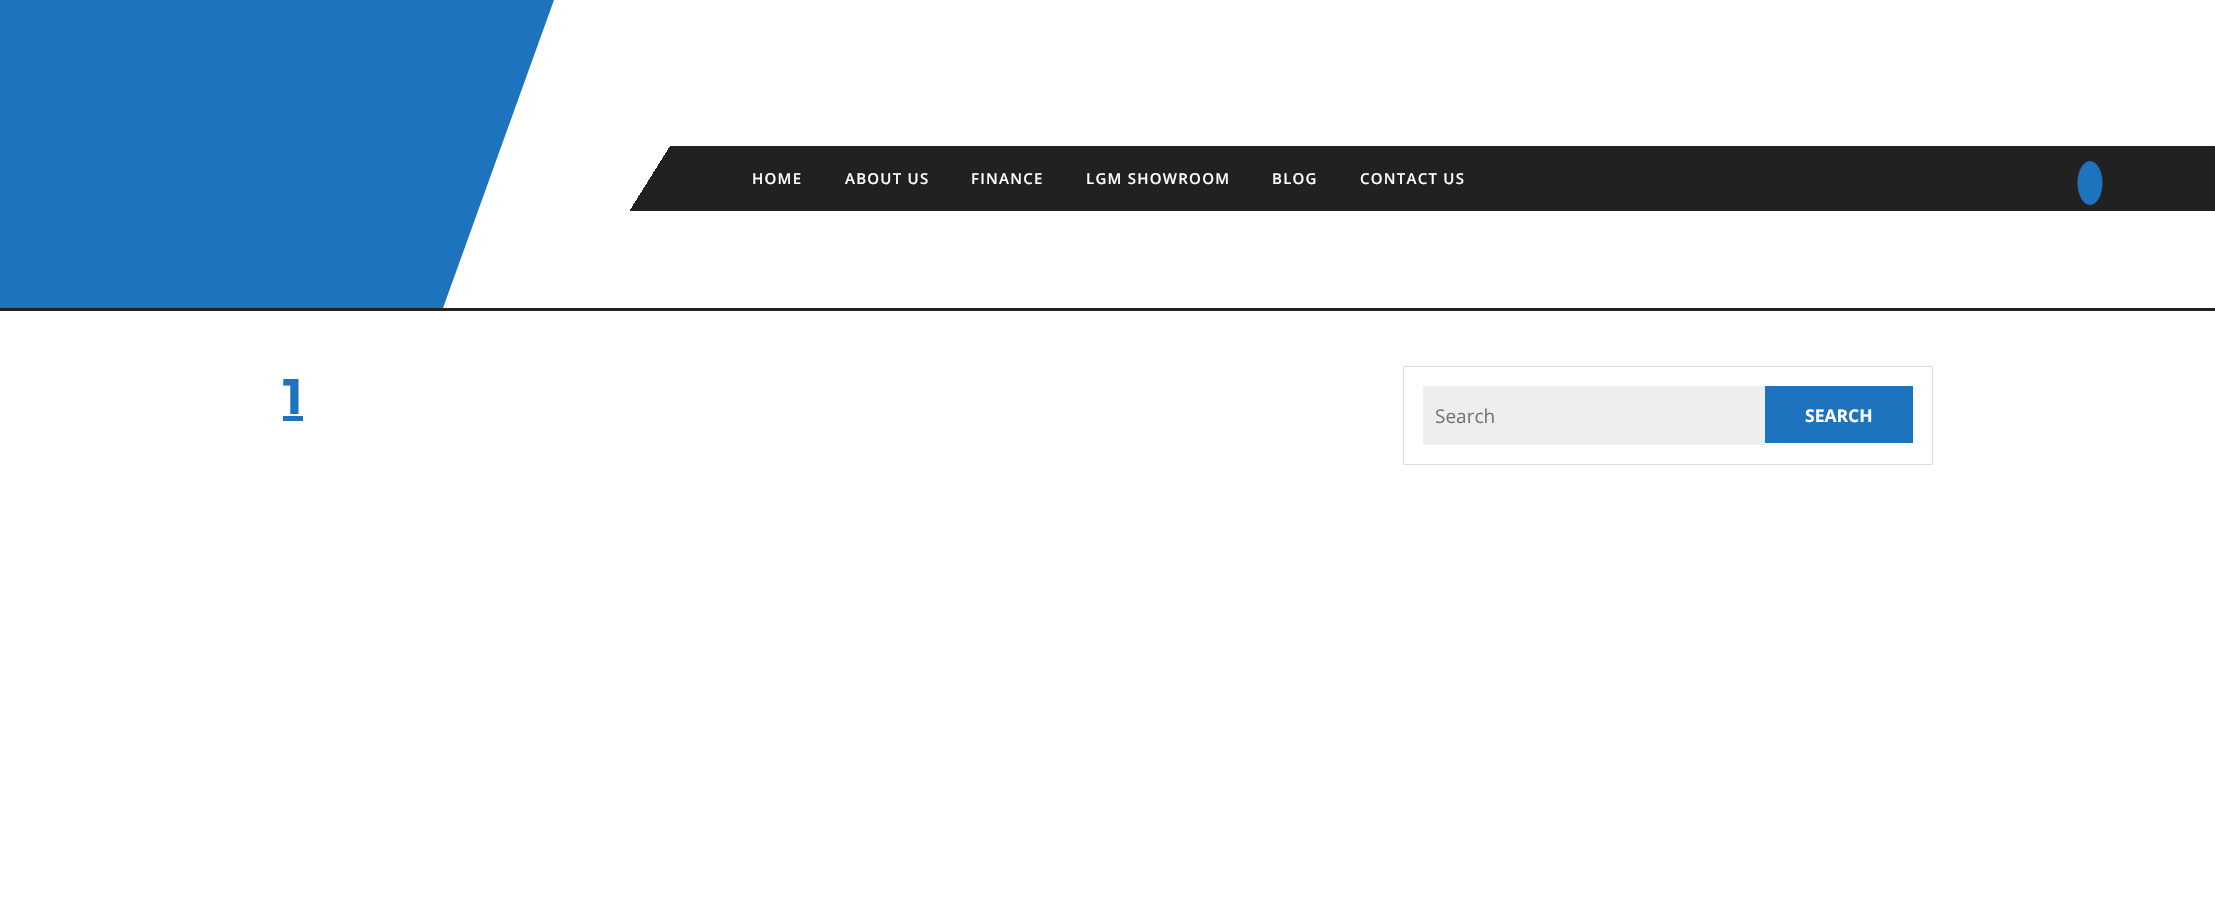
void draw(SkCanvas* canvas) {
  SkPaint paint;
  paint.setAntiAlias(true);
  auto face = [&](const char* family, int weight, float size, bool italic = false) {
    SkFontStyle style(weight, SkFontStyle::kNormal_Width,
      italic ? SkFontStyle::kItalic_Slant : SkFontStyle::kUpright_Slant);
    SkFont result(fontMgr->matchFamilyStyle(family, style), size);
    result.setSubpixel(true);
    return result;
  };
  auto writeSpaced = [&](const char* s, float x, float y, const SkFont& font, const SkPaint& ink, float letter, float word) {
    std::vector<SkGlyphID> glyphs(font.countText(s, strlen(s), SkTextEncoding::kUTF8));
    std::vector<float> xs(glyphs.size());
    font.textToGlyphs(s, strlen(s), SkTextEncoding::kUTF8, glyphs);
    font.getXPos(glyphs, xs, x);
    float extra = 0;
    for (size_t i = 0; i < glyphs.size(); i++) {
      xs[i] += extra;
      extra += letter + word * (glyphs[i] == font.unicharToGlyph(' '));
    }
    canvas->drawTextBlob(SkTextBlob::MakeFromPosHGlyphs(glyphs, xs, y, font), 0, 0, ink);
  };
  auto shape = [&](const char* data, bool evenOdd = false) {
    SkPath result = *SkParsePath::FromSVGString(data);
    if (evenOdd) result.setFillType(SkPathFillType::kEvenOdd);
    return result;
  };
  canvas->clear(0xffffffff);
  paint.setColor(0xff222222);
  canvas->drawRect(SkRect::MakeXYWH(0, 308, 2215, 3), paint);
  paint.setColor(0xff1e73be);
  canvas->drawPath(shape("M0 0V308H443L554 0Z"), paint);
  {
    const SkColor colors[] = {0xffffffff, 0xff212121};
    const float stops[] = {0.06f, 0.06f};
    const SkPoint ends[] = {{785, -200}, {1998, 558}};
    paint.setShader(SkGradientShader::MakeLinear(ends, colors, stops, 2, SkTileMode::kClamp));
    paint.setAlpha(255);
  }
  canvas->drawRect(SkRect::MakeXYWH(630, 146, 1585, 65), paint);
  paint.setShader(nullptr);
  paint.setColor(0xff1e73be);
  canvas->drawOval(SkRect::MakeXYWH(2077.5f, 161, 25, 44), paint);
  canvas->drawRect(SkRect::MakeXYWH(283, 416, 20, 5), paint);
  paint.setStroke(true);
  paint.setStrokeWidth(1);
  paint.setColor(0xffdddddd);
  canvas->drawRect(SkRect::MakeXYWH(1403.5f, 366.5f, 529, 98), paint);
  paint.setStroke(false);
  paint.setColor(0xffeeeeee);
  canvas->drawRect(SkRect::MakeXYWH(1423, 386, 342, 59), paint);
  paint.setColor(0xff1e73be);
  canvas->drawRect(SkRect::MakeXYWH(1765, 386, 148, 57), paint);
  auto f0 = face("Open Sans", 600, 15);
  paint.setColor(0xffffffff);
  {
    const struct { const char* s; float x, y; } items[] = {
      {"HOME", 752, 184},
      {"ABOUT US", 845, 184},
      {"FINANCE", 971, 184},
      {"LGM SHOWROOM", 1086, 184},
      {"BLOG", 1272, 184},
      {"CONTACT US", 1360, 184},
    };
    for (auto [s, x, y] : items) {
      writeSpaced(s, x, y, f0, paint, 1.25f, 0);
    }
  }
  auto f1 = face("Montserrat", 700, 50);
  paint.setColor(0xff1e73be);
  canvas->drawString("1", 283, 414, f1, paint);
  auto f2 = face("Open Sans", 400, 19);
  paint.setColor(0xff757575);
  canvas->drawString("Search", 1435, 423, f2, paint);
  auto f3 = face("Open Sans", 700, 17.5f);
  paint.setColor(0xffffffff);
  canvas->drawString("SEARCH", 1805, 422, f3, paint);
}
